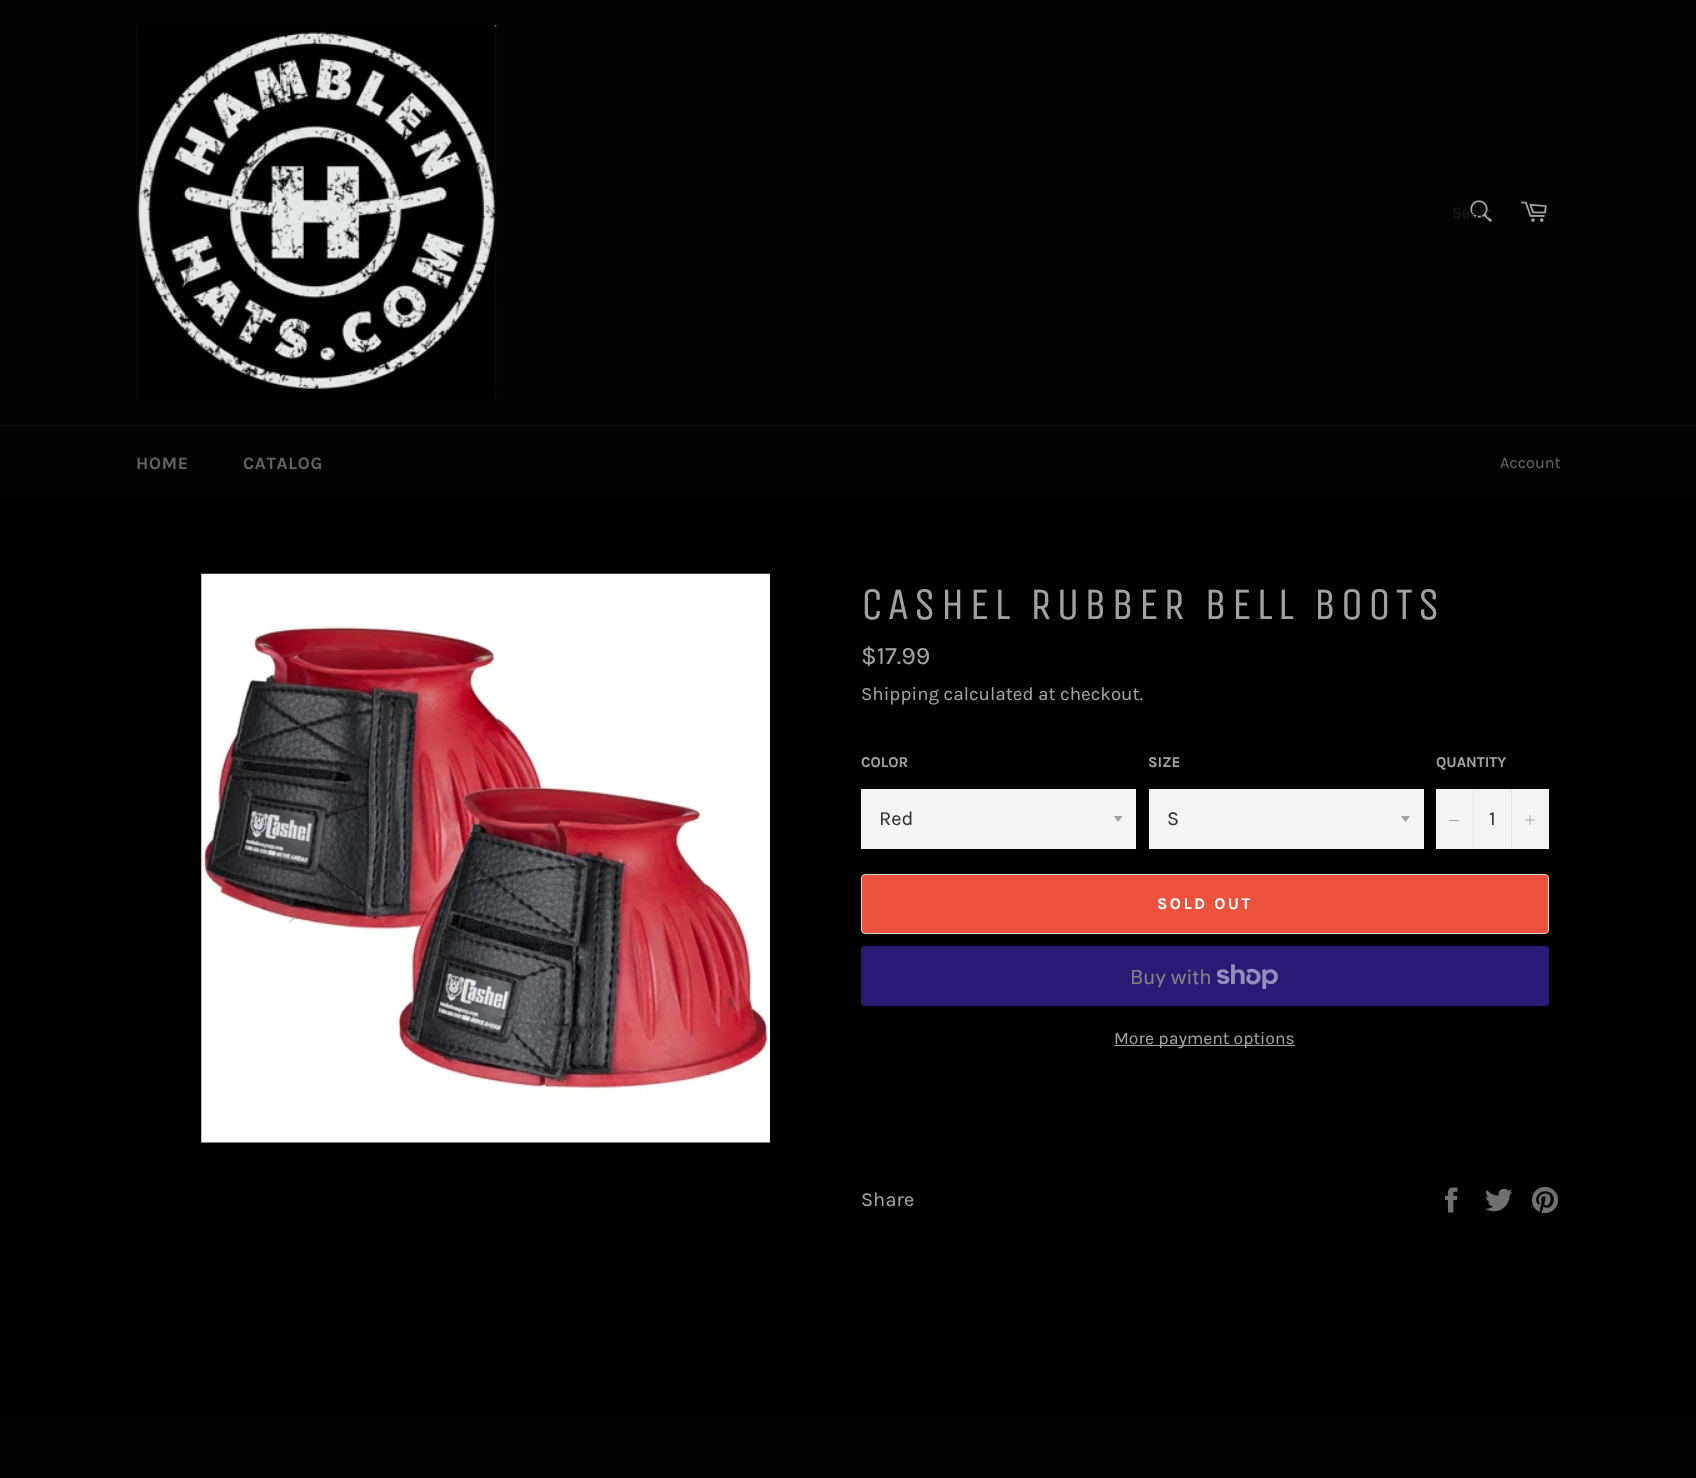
void draw(SkCanvas* canvas) {
  SkPaint paint;
  paint.setAntiAlias(true);
  auto face = [&](const char* family, int weight, float size, bool italic = false) {
    SkFontStyle style(weight, SkFontStyle::kNormal_Width,
      italic ? SkFontStyle::kItalic_Slant : SkFontStyle::kUpright_Slant);
    SkFont result(fontMgr->matchFamilyStyle(family, style), size);
    result.setSubpixel(true);
    return result;
  };
  auto writeSpaced = [&](const char* s, float x, float y, const SkFont& font, const SkPaint& ink, float letter, float word) {
    std::vector<SkGlyphID> glyphs(font.countText(s, strlen(s), SkTextEncoding::kUTF8));
    std::vector<float> xs(glyphs.size());
    font.textToGlyphs(s, strlen(s), SkTextEncoding::kUTF8, glyphs);
    font.getXPos(glyphs, xs, x);
    float extra = 0;
    for (size_t i = 0; i < glyphs.size(); i++) {
      xs[i] += extra;
      extra += letter + word * (glyphs[i] == font.unicharToGlyph(' '));
    }
    canvas->drawTextBlob(SkTextBlob::MakeFromPosHGlyphs(glyphs, xs, y, font), 0, 0, ink);
  };
  auto paste = [&](const char* path, float x, float y, float w, float h) {
    auto image = SkImages::DeferredFromEncodedData(SkData::MakeFromFileName(path));
    canvas->drawImageRect(image, SkRect::MakeXYWH(x, y, w, h), SkSamplingOptions());
  };
  auto shape = [&](const char* data, bool evenOdd = false) {
    SkPath result = *SkParsePath::FromSVGString(data);
    if (evenOdd) result.setFillType(SkPathFillType::kEvenOdd);
    return result;
  };
  canvas->clear(0xff000000);
  paint.setColor(0xff030303);
  canvas->drawRect(SkRect::MakeXYWH(0, 0, 1696, 425), paint);
  paste("img/1.png", 136, 25, 361, 375);
  paste("img/2.png", 1470, 200, 22, 22);
  paste("img/3.png", 1521, 201, 26, 21);
  canvas->drawRect(SkRect::MakeXYWH(0, 426, 1696, 74), paint);
  paint.setColor(0xff101010);
  canvas->drawRect(SkRect::MakeXYWH(0, 425, 1696, 1), paint);
  paste("img/4.png", 201, 573, 569, 570);
  paint.setColor(0xfff4f4f4);
  canvas->drawRect(SkRect::MakeXYWH(861, 789, 275, 60), paint);
  paint.setColor(0xffa1a1a1);
  canvas->drawPath(shape("M1114 816L1118 822L1122.5 816Z"), paint);
  paint.setColor(0xfff4f4f4);
  canvas->drawRect(SkRect::MakeXYWH(1149, 789, 275, 60), paint);
  paint.setColor(0xffa1a1a1);
  canvas->drawPath(shape("M1401 816L1405.5 822L1410 816Z"), paint);
  {
    const struct { float x, y, w, h; SkColor color; } items[] = {
      {1436, 789, 113, 60, 0xfff4f4f4},
      {1473, 789, 1, 60, 0xffe7e7e7},
      {1449, 820, 10, 1, 0xffa1a1a1},
      {1511, 789, 1, 60, 0xffe7e7e7},
    };
    for (auto [x, y, w, h, color] : items) {
      paint.setColor(color);
      canvas->drawRect(SkRect::MakeXYWH(x, y, w, h), paint);
    }
  }
  paste("img/5.png", 1525, 815, 10, 10);
  paint.setColor(0xffec523e);
  canvas->drawRoundRect(SkRect::MakeXYWH(861.5f, 874.5f, 687, 59), 3.5f, 3.5f, paint);
  paint.setStroke(true);
  paint.setStrokeWidth(1);
  paint.setColor(0xffd5d5d5);
  canvas->drawRoundRect(SkRect::MakeXYWH(861.5f, 874.5f, 687, 59), 3.5f, 3.5f, paint);
  paint.setStroke(false);
  paint.setColor(0xff2a1a76);
  canvas->drawRoundRect(SkRect::MakeXYWH(861, 946, 688, 60), 4, 4, paint);
  paste("img/6.png", 1217, 964, 61, 25);
  paint.setColor(0xffa1a1a1);
  canvas->drawRect(SkRect::MakeXYWH(1114, 1045, 181, 1), paint);
  paste("img/7.png", 1445, 1187, 13, 26);
  paste("img/8.png", 1485, 1188, 28, 24);
  paste("img/9.png", 1531, 1186, 28, 28);
  paint.setColor(0xff030303);
  canvas->drawRect(SkRect::MakeXYWH(0, 1415, 1696, 63), paint);
  canvas->save();
  canvas->clipRect(SkRect::MakeXYWH(1451, 204, 40, 19));
  auto f0 = face("Karla", 400, 16.25f);
  paint.setColor(0xff191919);
  canvas->drawString("Searc", 1452, 218, f0, paint);
  canvas->restore();
  auto f1 = face("Karla", 700, 17.5f);
  paint.setColor(0xff626262);
  writeSpaced("HOME", 136, 469, f1, paint, 0.75f, 0);
  writeSpaced("CATALOG", 243, 469, f1, paint, 0.75f, 0);
  canvas->drawString("Account", 1500, 468, f0, paint);
  auto f2 = face("Unica One", 400, 45);
  paint.setColor(0xffa1a1a1);
  writeSpaced("CASHEL RUBBER BELL BOOTS", 861, 619, f2, paint, 4.5f, 0);
  auto f3 = face("Karla", 400, 25);
  canvas->drawString("$17.99", 861, 664, f3, paint);
  auto f4 = face("Karla", 400, 18.75f);
  canvas->drawString("Shipping calculated at checkout.", 861, 700, f4, paint);
  auto f5 = face("Karla", 700, 15);
  canvas->drawString("COLOR", 861, 767, f5, paint);
  auto f6 = face("Karla", 400, 20);
  paint.setColor(0xff333333);
  canvas->drawString("Red", 879, 825, f6, paint);
  paint.setColor(0xffa1a1a1);
  canvas->drawString("SIZE", 1148, 767, f5, paint);
  paint.setColor(0xff333333);
  canvas->drawString("S", 1167, 825, f6, paint);
  paint.setColor(0xffa1a1a1);
  canvas->drawString("QUANTITY", 1436, 767, f5, paint);
  paint.setColor(0xff333333);
  canvas->drawString("1", 1489, 825, f6, paint);
  auto f7 = face("Karla", 700, 16.25f);
  paint.setColor(0xffffffff);
  writeSpaced("SOLD OUT", 1157, 909, f7, paint, 2.5f, 0);
  auto f8 = face("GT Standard", 400, 20);
  paint.setColor(0xff808080);
  canvas->drawString("Buy with", 1130, 984, f8, paint);
  auto f9 = face("Karla", 400, 17.5f);
  paint.setColor(0xffa1a1a1);
  canvas->drawString("More payment options", 1114, 1044, f9, paint);
  canvas->drawString("Share", 861, 1206, f6, paint);
}
